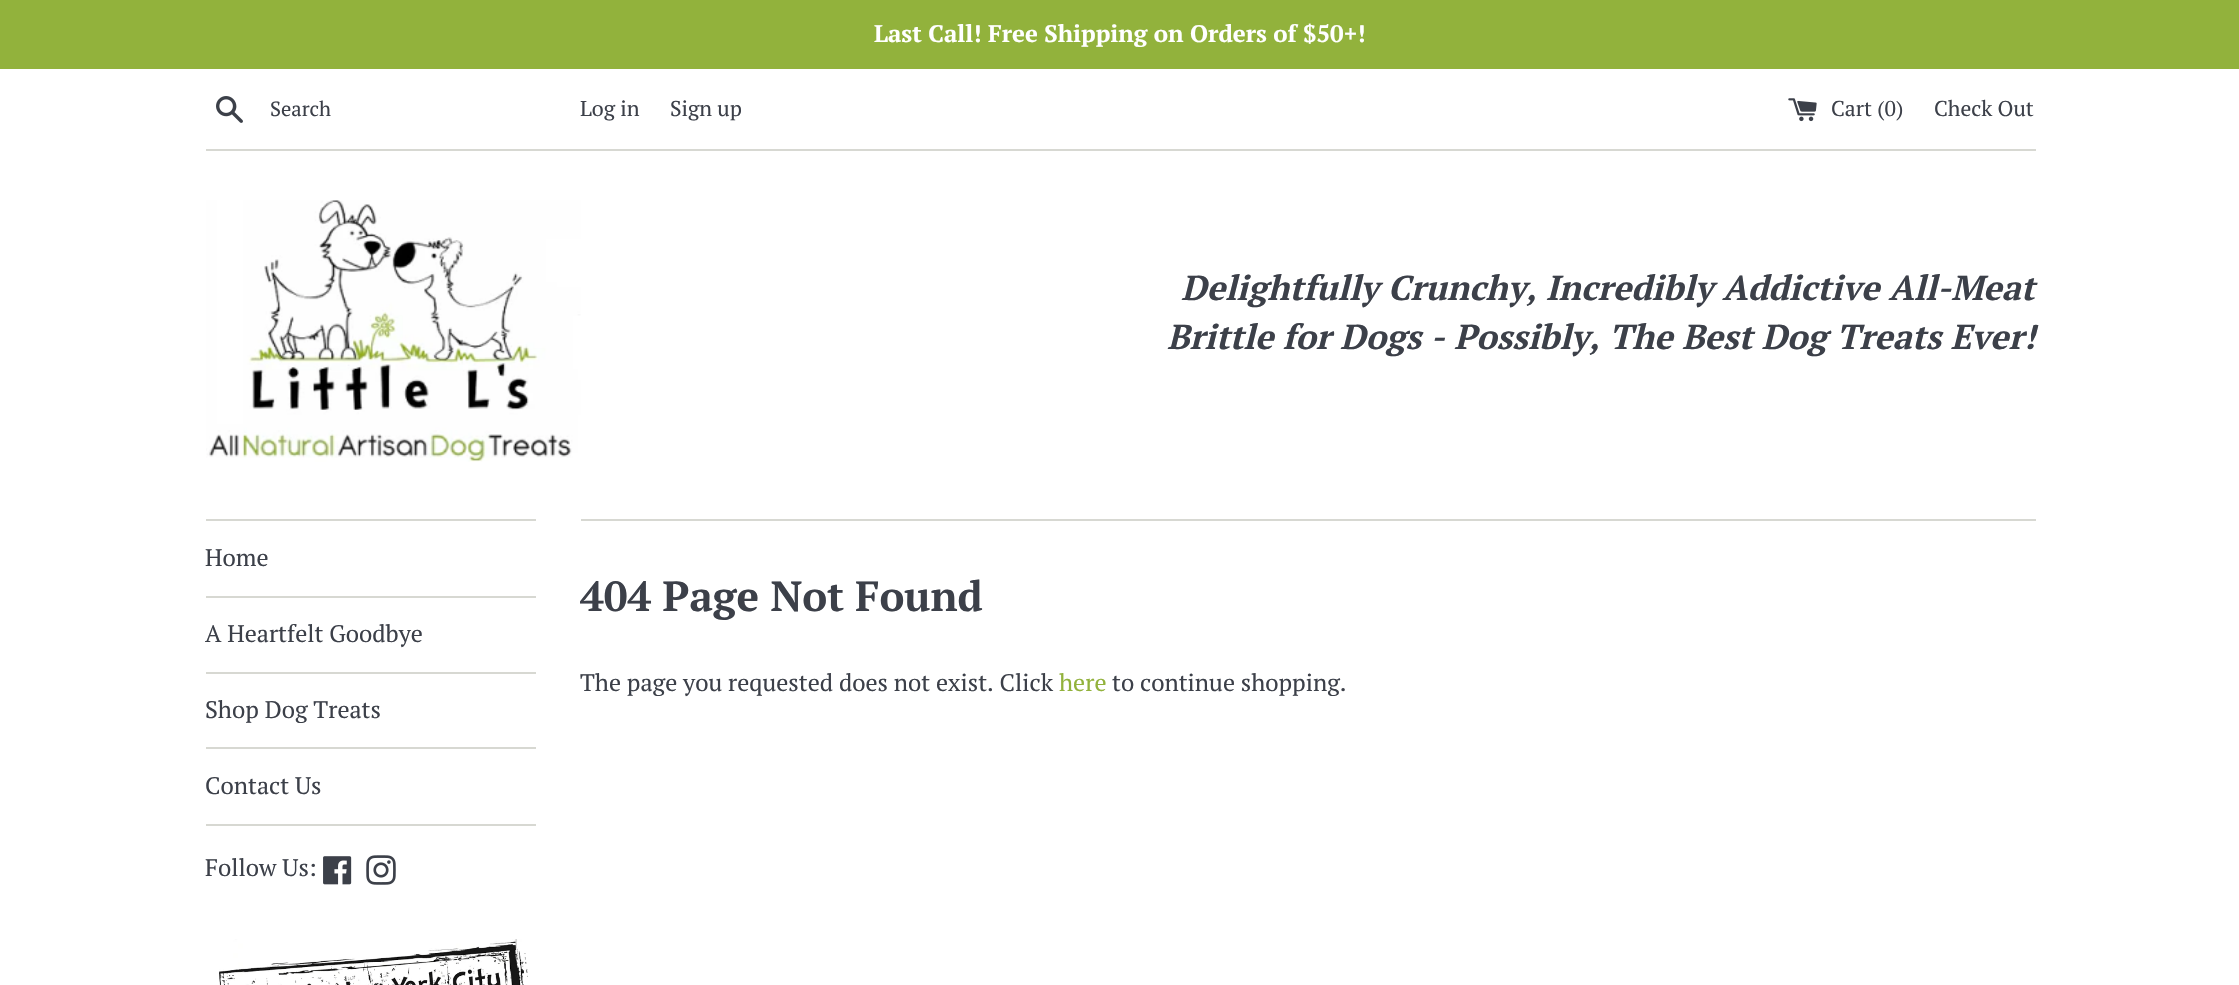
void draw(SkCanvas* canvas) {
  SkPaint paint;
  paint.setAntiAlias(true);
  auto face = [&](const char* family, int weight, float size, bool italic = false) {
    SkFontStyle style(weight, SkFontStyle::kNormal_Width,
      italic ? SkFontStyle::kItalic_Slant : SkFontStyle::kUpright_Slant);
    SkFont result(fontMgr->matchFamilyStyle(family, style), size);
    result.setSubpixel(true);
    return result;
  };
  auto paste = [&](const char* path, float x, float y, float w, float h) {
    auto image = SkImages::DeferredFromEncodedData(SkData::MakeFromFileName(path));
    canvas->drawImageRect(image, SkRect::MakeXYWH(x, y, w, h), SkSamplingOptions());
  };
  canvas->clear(0xffffffff);
  paint.setColor(0xff92b23c);
  canvas->drawRect(SkRect::MakeXYWH(0, 0, 2239, 69), paint);
  paste("img/1.png", 216, 96, 27, 27);
  paste("img/2.png", 1788, 98, 29, 24);
  paint.setColor(0xffd7d8d2);
  canvas->drawRect(SkRect::MakeXYWH(206, 149, 1830, 2), paint);
  paste("img/3.png", 206, 200, 375, 262);
  {
    const struct { float x, y, w, h; SkColor color; } items[] = {
      {206, 519, 330, 2, 0xffd7d8d2},
      {206, 596, 330, 2, 0xffd7d8d2},
      {206, 672, 330, 2, 0xffd7d8d2},
      {206, 747, 330, 2, 0xffd7d8d2},
      {206, 824, 330, 2, 0xffd7d8d2},
    };
    for (auto [x, y, w, h, color] : items) {
      paint.setColor(color);
      canvas->drawRect(SkRect::MakeXYWH(x, y, w, h), paint);
    }
  }
  paste("img/4.png", 323, 856, 29, 29);
  paste("img/5.png", 366, 855, 30, 30);
  paste("img/6.png", 219, 939, 309, 46);
  canvas->drawRect(SkRect::MakeXYWH(581, 519, 1455, 2), paint);
  auto f0 = face("PT Serif", 700, 24);
  paint.setColor(0xffffffff);
  canvas->drawString("Last Call! Free Shipping on Orders of $50+!", 874, 42, f0, paint);
  auto f1 = face("PT Serif", 400, 20.5f);
  paint.setColor(0xff3c4049);
  canvas->drawString("Search", 270, 116, f1, paint);
  auto f2 = face("PT Serif", 400, 21.5f);
  {
    const struct { const char* s; float x, y; } items[] = {
      {"Log in", 580, 116},
      {"Sign up", 670, 116},
      {"Cart (0)", 1831, 116},
      {"Check Out", 1934, 116},
    };
    for (auto [s, x, y] : items) {
      canvas->drawString(s, x, y, f2, paint);
    }
  }
  auto f3 = face("PT Serif", 700, 34.5f, true);
  canvas->drawString("Delightfully Crunchy, Incredibly Addictive All-Meat", 1181, 300, f3, paint);
  canvas->drawString("Brittle for Dogs - Possibly, The Best Dog Treats Ever!", 1167, 349, f3, paint);
  auto f4 = face("PT Serif", 400, 24);
  {
    const struct { const char* s; float x, y; } items[] = {
      {"Home", 205, 566},
      {"A Heartfelt Goodbye", 205, 642},
      {"Shop Dog Treats", 205, 718},
      {"Contact Us", 205, 794},
      {"Follow Us:", 205, 876},
    };
    for (auto [s, x, y] : items) {
      canvas->drawString(s, x, y, f4, paint);
    }
  }
  auto f5 = face("PT Serif", 700, 42);
  canvas->drawString("404 Page Not Found", 580, 611, f5, paint);
  canvas->drawString("The page you requested does not exist. Click", 580, 691, f4, paint);
  paint.setColor(0xff92b23c);
  canvas->drawString("here", 1059, 691, f4, paint);
  paint.setColor(0xff3c4049);
  canvas->drawString("to continue shopping.", 1112, 691, f4, paint);
}
